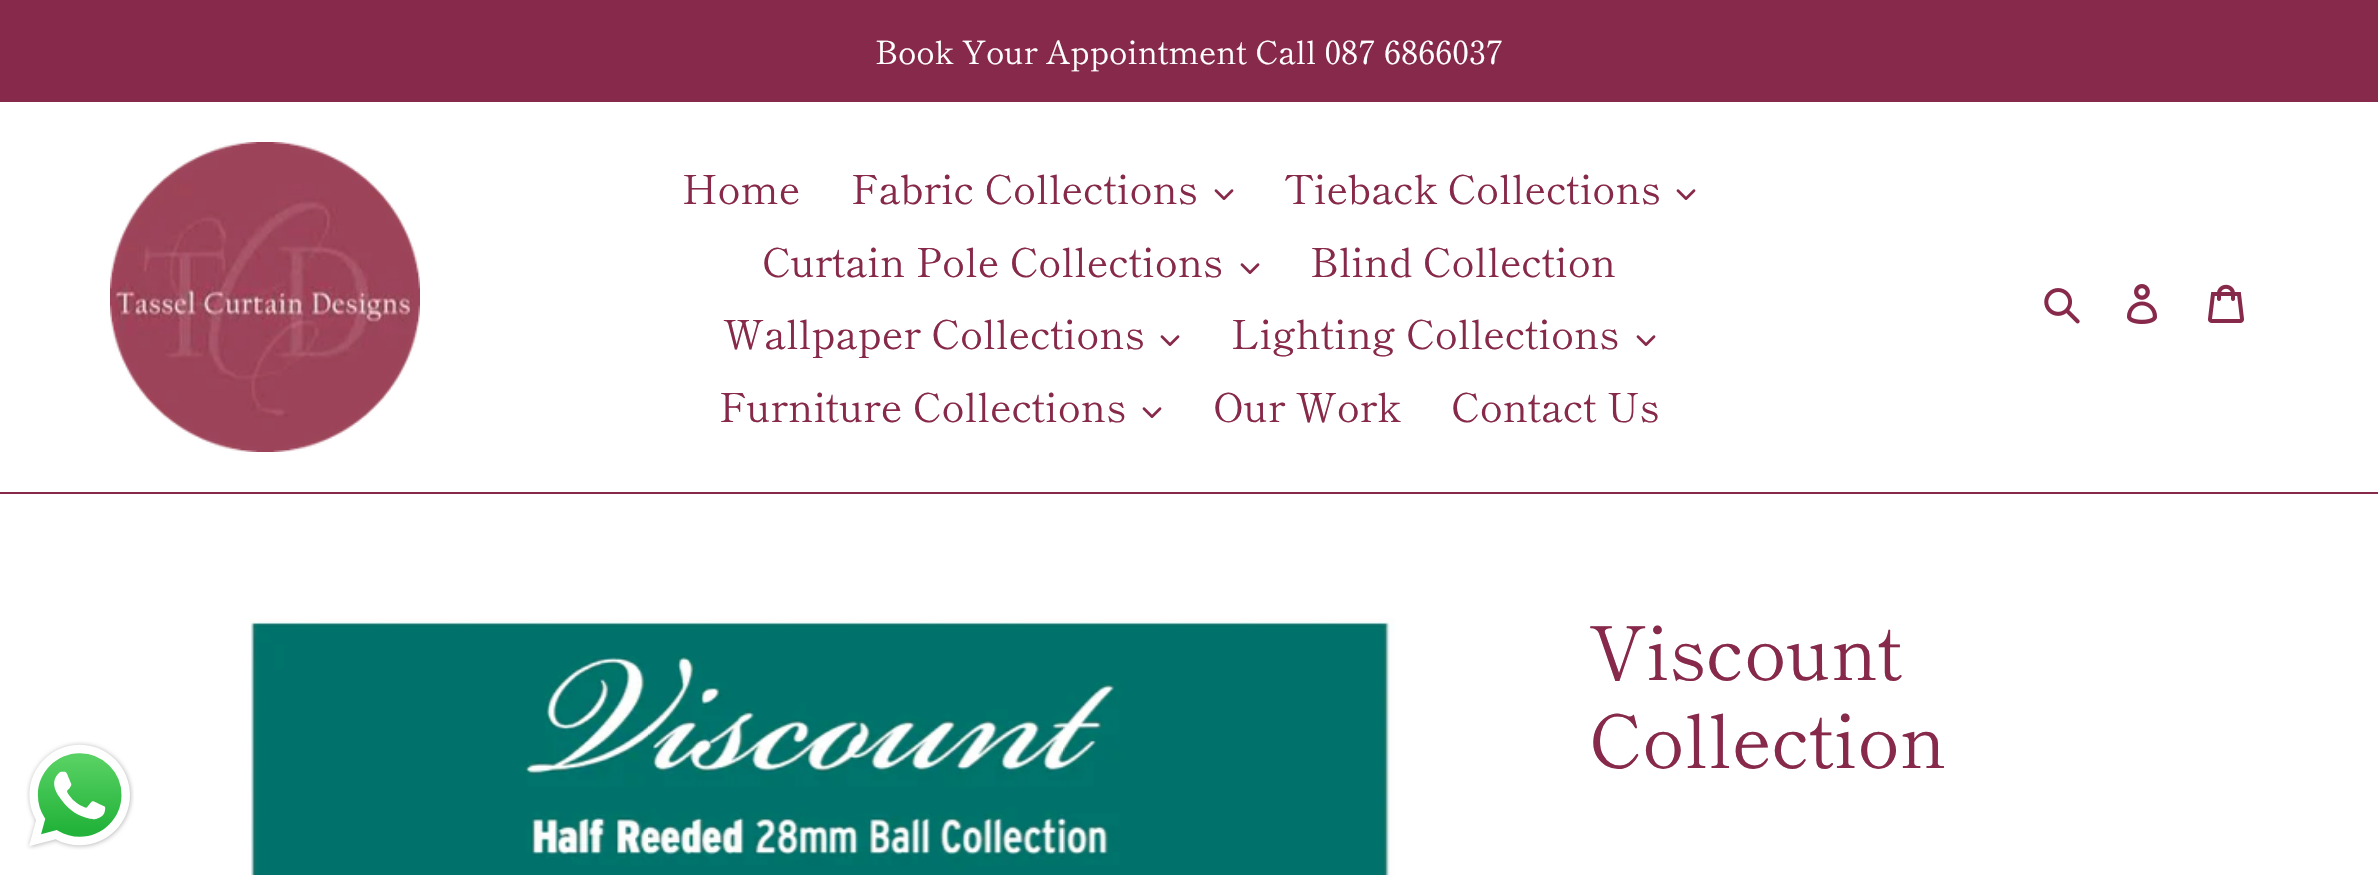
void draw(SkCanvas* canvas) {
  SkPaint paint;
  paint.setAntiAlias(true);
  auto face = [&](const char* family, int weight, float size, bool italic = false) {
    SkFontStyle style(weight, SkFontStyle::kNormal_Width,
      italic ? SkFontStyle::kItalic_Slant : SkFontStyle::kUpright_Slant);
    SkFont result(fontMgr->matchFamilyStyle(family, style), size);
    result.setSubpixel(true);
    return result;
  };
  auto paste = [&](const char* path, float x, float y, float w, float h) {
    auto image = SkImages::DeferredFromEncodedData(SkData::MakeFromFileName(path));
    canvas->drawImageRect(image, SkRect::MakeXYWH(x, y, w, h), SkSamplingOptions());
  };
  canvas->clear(0xffffffff);
  paint.setColor(0xff87294a);
  canvas->drawRect(SkRect::MakeXYWH(0, 0, 2378, 102), paint);
  canvas->drawRect(SkRect::MakeXYWH(0, 492, 2378, 2), paint);
  paste("img/1.png", 110, 142, 310, 310);
  paste("img/2.png", 1214, 189, 20, 11);
  paste("img/2.png", 1676, 189, 20, 11);
  paste("img/2.png", 1240, 263, 20, 11);
  paste("img/2.png", 1160, 335, 20, 11);
  paste("img/2.png", 1636, 335, 20, 11);
  paste("img/2.png", 1142, 407, 20, 11);
  paste("img/3.png", 2044, 288, 36, 36);
  paste("img/4.png", 2127, 284, 31, 40);
  paste("img/5.png", 2208, 284, 36, 39);
  paste("img/6.png", 250, 618, 1145, 257);
  paste("img/7.png", 26, 741, 108, 109);
  auto f0 = face("Shippori Mincho", 400, 32);
  paint.setColor(0xffffffff);
  canvas->drawString("Book Your Appointment Call 087 6866037", 875, 64, f0, paint);
  auto f1 = face("Shippori Mincho", 400, 40);
  paint.setColor(0xff87294a);
  {
    const struct { const char* s; float x, y; } items[] = {
      {"Home", 682, 204},
      {"Fabric Collections", 851, 204},
      {"Tieback Collections", 1284, 204},
      {"Curtain Pole Collections", 762, 277},
      {"Blind Collection", 1310, 277},
      {"Wallpaper Collections", 723, 349},
      {"Lighting Collections", 1231, 349},
      {"Furniture Collections", 719, 422},
      {"Our Work", 1213, 422},
      {"Contact Us", 1451, 422},
    };
    for (auto [s, x, y] : items) {
      canvas->drawString(s, x, y, f1, paint);
    }
  }
  auto f2 = face("Shippori Mincho", 400, 74);
  canvas->drawString("Viscount", 1589, 680, f2, paint);
  canvas->drawString("Collection", 1589, 768, f2, paint);
}
